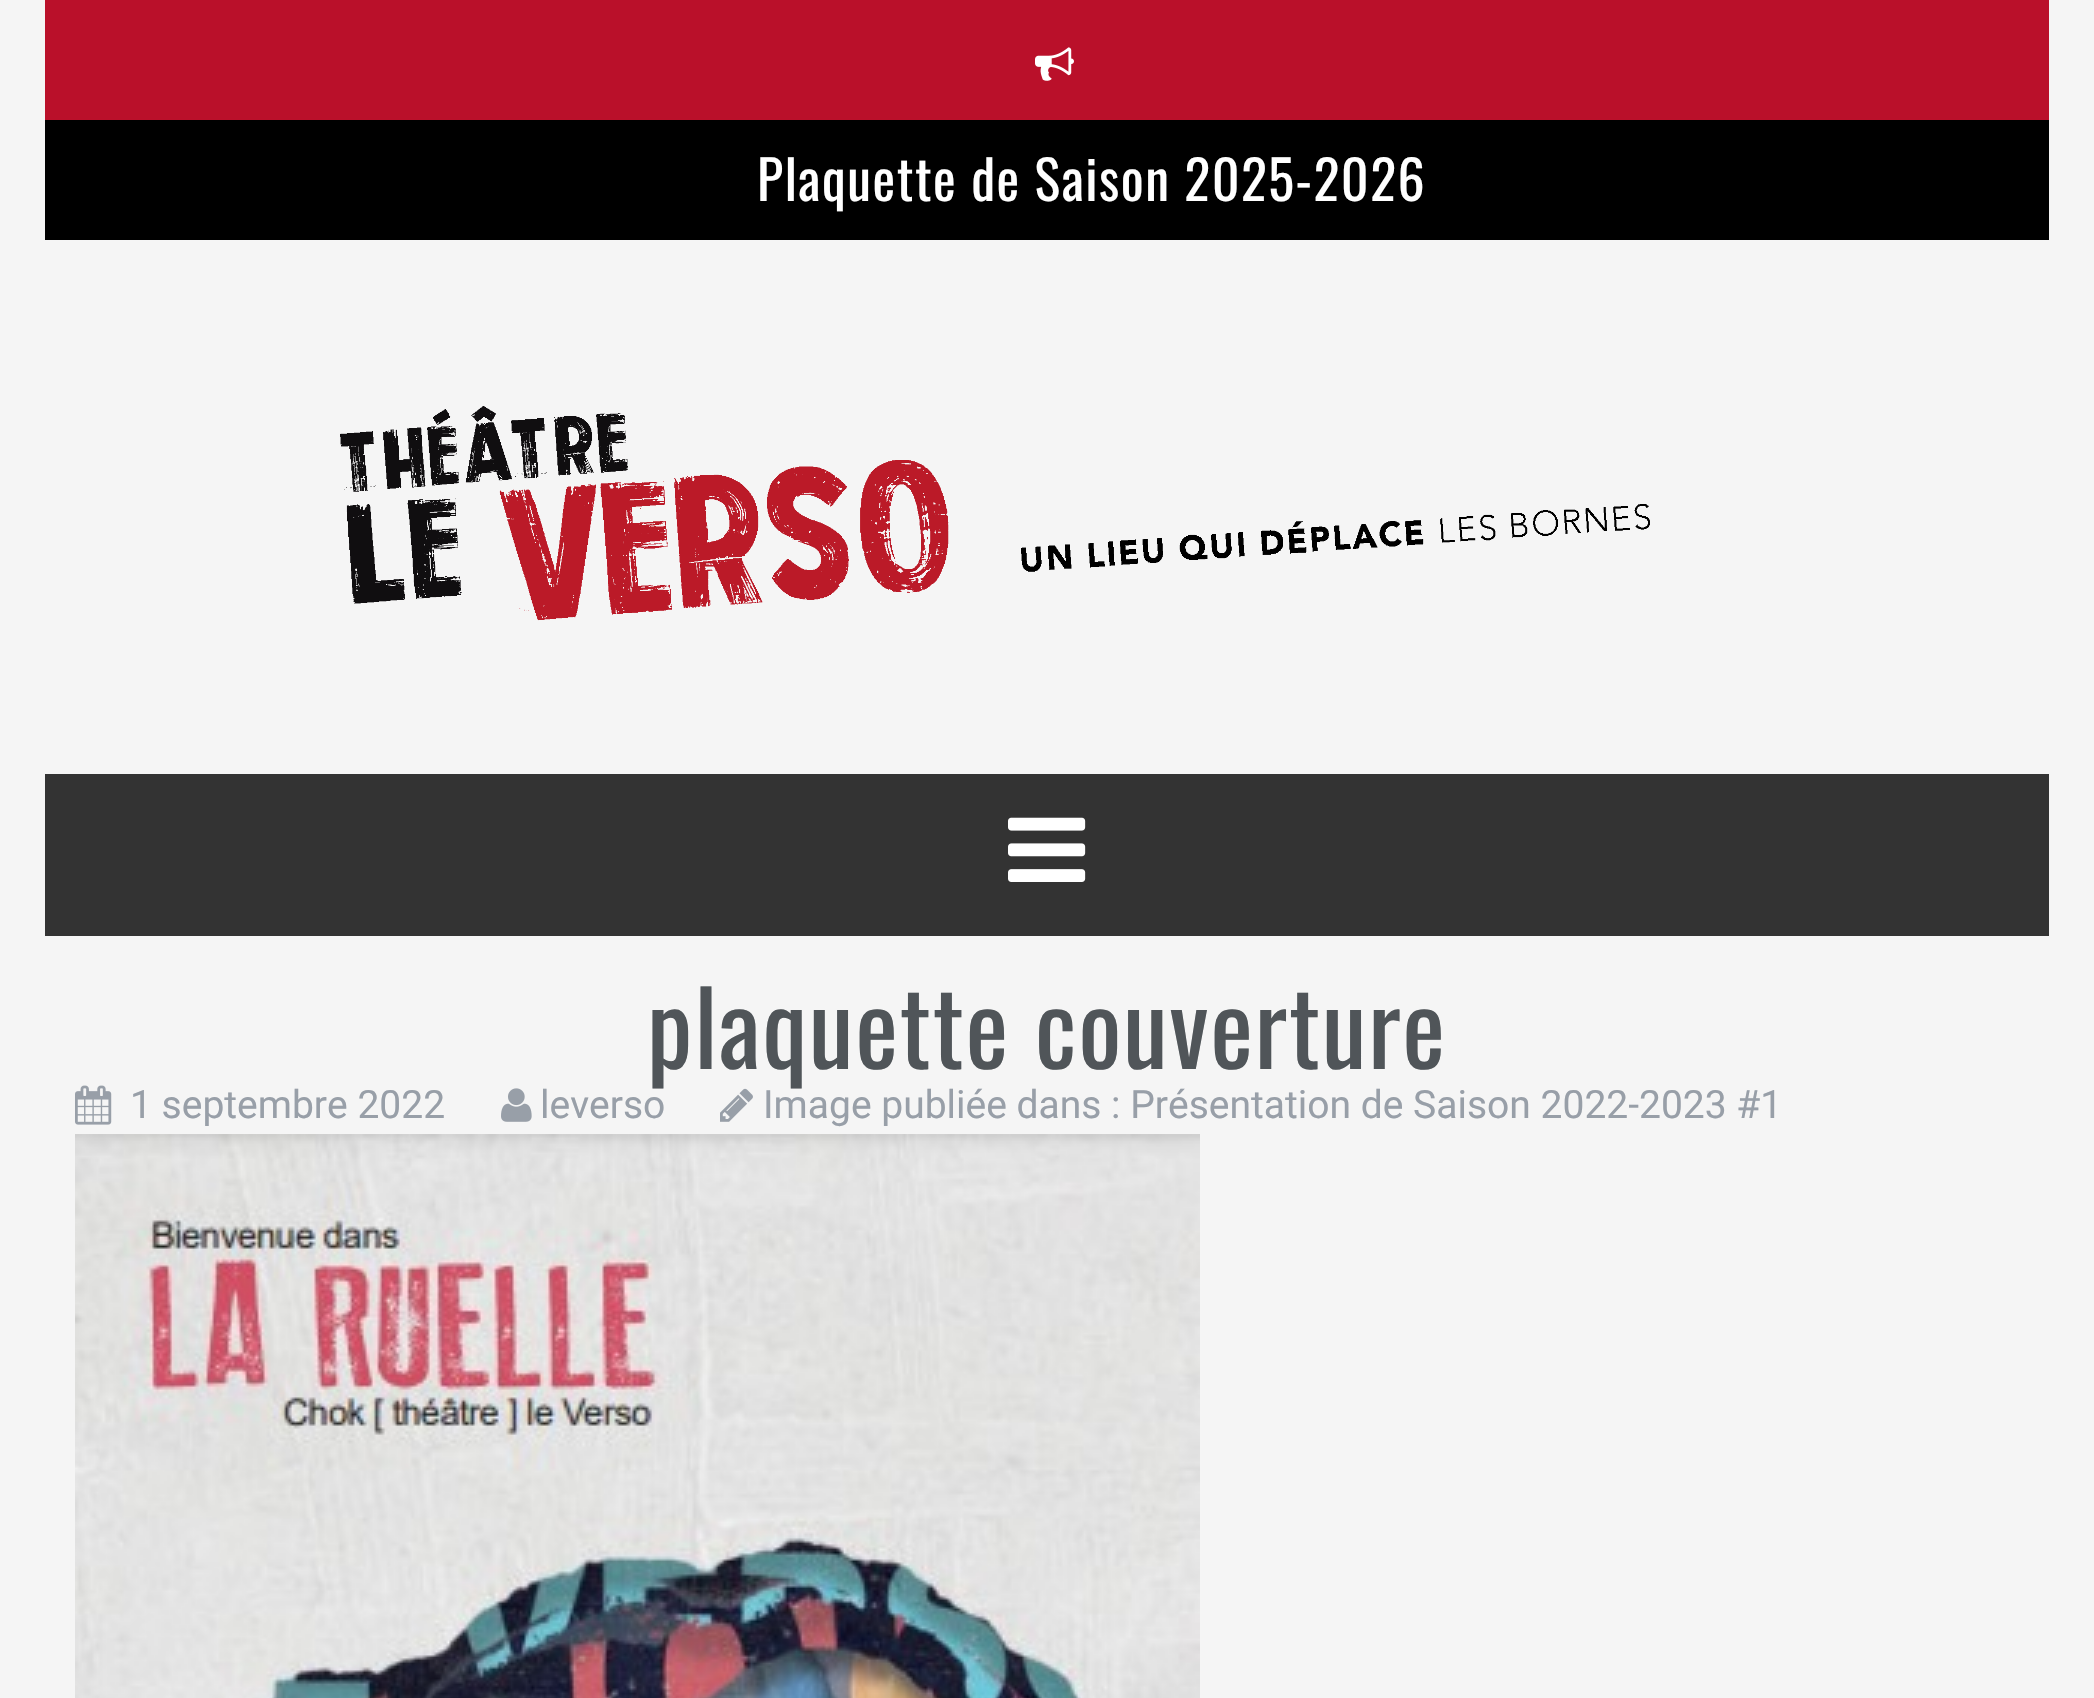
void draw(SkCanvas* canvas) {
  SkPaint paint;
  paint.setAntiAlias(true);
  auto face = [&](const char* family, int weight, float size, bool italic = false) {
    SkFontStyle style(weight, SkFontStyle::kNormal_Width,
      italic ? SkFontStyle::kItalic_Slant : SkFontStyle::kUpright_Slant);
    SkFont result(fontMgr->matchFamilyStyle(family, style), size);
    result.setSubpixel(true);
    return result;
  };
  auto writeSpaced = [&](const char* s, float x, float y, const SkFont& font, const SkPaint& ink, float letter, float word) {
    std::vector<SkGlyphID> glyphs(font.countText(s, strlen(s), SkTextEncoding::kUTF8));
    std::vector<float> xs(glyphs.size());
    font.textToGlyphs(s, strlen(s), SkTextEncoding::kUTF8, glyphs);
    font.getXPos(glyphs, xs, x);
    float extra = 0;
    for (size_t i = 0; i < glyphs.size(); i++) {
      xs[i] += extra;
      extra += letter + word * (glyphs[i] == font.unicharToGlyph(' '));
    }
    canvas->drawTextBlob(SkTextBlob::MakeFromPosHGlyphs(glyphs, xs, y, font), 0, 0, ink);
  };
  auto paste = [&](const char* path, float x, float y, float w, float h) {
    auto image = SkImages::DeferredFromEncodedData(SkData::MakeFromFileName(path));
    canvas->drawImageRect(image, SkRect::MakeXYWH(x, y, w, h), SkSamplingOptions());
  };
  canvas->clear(0xfff5f5f5);
  paint.setColor(0xffba102a);
  canvas->drawRect(SkRect::MakeXYWH(45, 0, 2004, 120), paint);
  paste("img/1.png", 1035, 47, 39, 34);
  paint.setColor(0xff000000);
  canvas->drawRect(SkRect::MakeXYWH(45, 120, 2004, 120), paint);
  paste("img/2.png", 340, 406, 1310, 215);
  paint.setColor(0xff333333);
  canvas->drawRect(SkRect::MakeXYWH(45, 774, 2004, 162), paint);
  paste("img/3.png", 1008, 817, 78, 65);
  paste("img/4.png", 75, 1085, 37, 40);
  paste("img/5.png", 501, 1088, 31, 34);
  paste("img/7.png", 75, 1134, 1125, 564);
  auto f0 = face("Oswald", 400, 54);
  paint.setColor(0xffffffff);
  writeSpaced("Plaquette de Saison 2025-2026", 757, 201, f0, paint, 1.5f, 0);
  auto f1 = face("Oswald", 400, 102);
  paint.setColor(0xff505559);
  writeSpaced("plaquette couverture", 647, 1069, f1, paint, 1.5f, 0);
  auto f2 = face("Roboto", 400, 39);
  paint.setColor(0xff989fa8);
  canvas->drawString("1 septembre 2022", 130, 1118, f2, paint);
  canvas->drawString("leverso", 540, 1118, f2, paint);
  paste("img/6.png", 720, 1088, 33, 34);
  canvas->drawString("Image publiée dans : Présentation de Saison 2022-2023 #1", 763, 1118, f2, paint);
}
